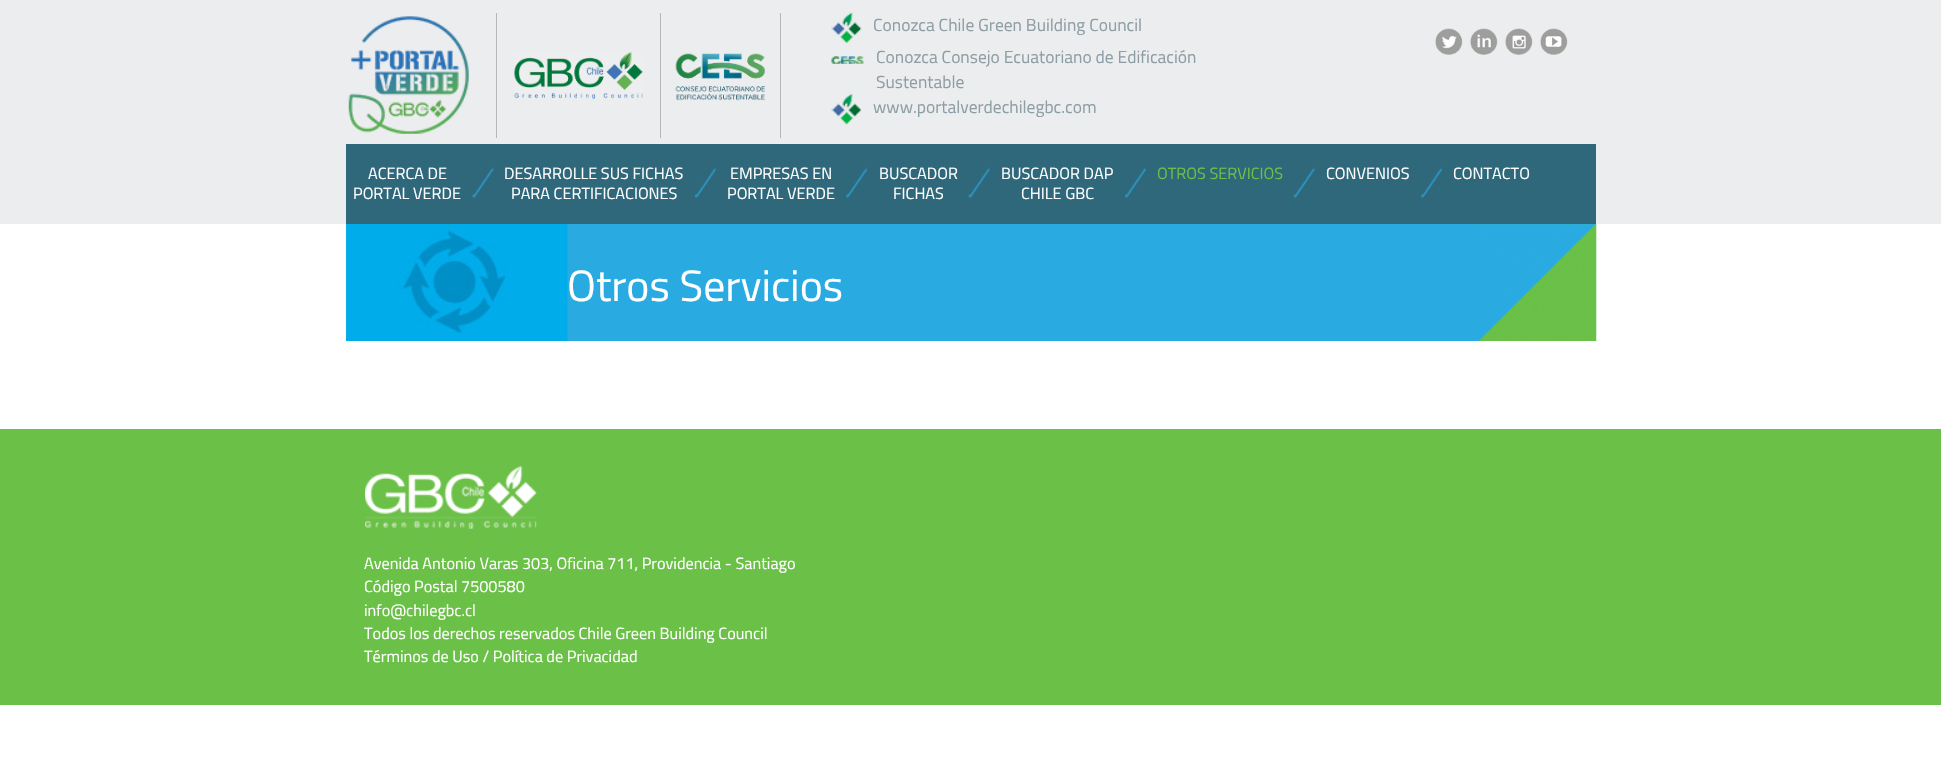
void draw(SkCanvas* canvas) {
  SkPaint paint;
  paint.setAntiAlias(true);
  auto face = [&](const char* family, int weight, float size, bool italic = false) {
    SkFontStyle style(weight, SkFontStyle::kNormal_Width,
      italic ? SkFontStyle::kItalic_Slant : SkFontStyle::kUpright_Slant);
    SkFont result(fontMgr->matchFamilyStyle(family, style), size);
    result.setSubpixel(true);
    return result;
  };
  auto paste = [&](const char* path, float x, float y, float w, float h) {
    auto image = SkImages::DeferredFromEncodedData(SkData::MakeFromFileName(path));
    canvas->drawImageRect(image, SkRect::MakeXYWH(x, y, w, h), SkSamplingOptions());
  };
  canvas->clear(0xffffffff);
  paint.setColor(0xffecedee);
  canvas->drawRect(SkRect::MakeXYWH(0, 0, 1941, 224), paint);
  paste("img/1.png", 348, 16, 121, 118);
  paint.setColor(0xffb6b6b6);
  canvas->drawRect(SkRect::MakeXYWH(660, 13, 1, 125), paint);
  canvas->drawRect(SkRect::MakeXYWH(496, 13, 1, 125), paint);
  paste("img/2.png", 514, 52, 129, 47);
  canvas->drawRect(SkRect::MakeXYWH(780, 13, 1, 125), paint);
  paste("img/3.png", 675, 53, 90, 48);
  paste("img/4.png", 831, 12, 31, 32);
  paste("img/5.png", 831, 56, 33, 8);
  paste("img/6.png", 831, 93, 31, 32);
  paste("img/7.png", 1435, 28, 28, 27);
  paste("img/8.png", 1470, 28, 28, 27);
  paste("img/9.png", 1505, 28, 28, 27);
  paste("img/10.png", 1540, 28, 28, 27);
  paint.setColor(0xff2f677b);
  canvas->drawRect(SkRect::MakeXYWH(346, 144, 1250, 80), paint);
  paste("img/11.png", 472, 167, 22, 32);
  paste("img/12.png", 695, 167, 22, 32);
  paste("img/13.png", 846, 167, 22, 32);
  paste("img/14.png", 968, 167, 22, 32);
  paste("img/12.png", 1125, 167, 22, 32);
  paste("img/15.png", 1293, 167, 22, 32);
  paste("img/13.png", 1421, 167, 22, 32);
  paint.setColor(0xff29abe2);
  canvas->drawRect(SkRect::MakeXYWH(346, 224, 1132, 117), paint);
  paste("img/16.png", 346, 224, 222, 117);
  paste("img/17.png", 1477, 224, 120, 118);
  paint.setColor(0xffffffff);
  canvas->drawRect(SkRect::MakeXYWH(1477, 341, 119, 1), paint);
  paint.setColor(0xff6bc048);
  canvas->drawRect(SkRect::MakeXYWH(0, 429, 1941, 276), paint);
  paste("img/18.png", 365, 466, 172, 63);
  auto f0 = face("Titillium Web", 400, 17.5f);
  paint.setColor(0xff8e9ea5);
  {
    const struct { const char* s; float x, y; } items[] = {
      {"Conozca Chile Green Building Council", 873, 31},
      {"Conozca Consejo Ecuatoriano de Edificación", 876, 63},
      {"Sustentable", 876, 88},
      {"www.portalverdechilegbc.com", 873, 113},
    };
    for (auto [s, x, y] : items) {
      canvas->drawString(s, x, y, f0, paint);
    }
  }
  auto f1 = face("Titillium Web", 400, 16.25f);
  paint.setColor(0xffffffff);
  {
    const struct { const char* s; float x, y; } items[] = {
      {"ACERCA DE", 368, 179},
      {"PORTAL VERDE", 353, 199},
      {"DESARROLLE SUS FICHAS", 504, 179},
      {"PARA CERTIFICACIONES", 511, 199},
      {"EMPRESAS EN", 730, 179},
      {"PORTAL VERDE", 727, 199},
      {"BUSCADOR", 879, 179},
      {"FICHAS", 893, 199},
      {"BUSCADOR DAP", 1001, 179},
      {"CHILE GBC", 1021, 199},
    };
    for (auto [s, x, y] : items) {
      canvas->drawString(s, x, y, f1, paint);
    }
  }
  paint.setColor(0xff6bc048);
  canvas->drawString("OTROS SERVICIOS", 1157, 179, f1, paint);
  paint.setColor(0xffffffff);
  canvas->drawString("CONVENIOS", 1326, 179, f1, paint);
  canvas->drawString("CONTACTO", 1453, 179, f1, paint);
  auto f2 = face("Titillium Web", 400, 43.75f);
  canvas->drawString("Otros Servicios", 567, 301, f2, paint);
  {
    const struct { const char* s; float x, y; } items[] = {
      {"Avenida Antonio Varas 303, Oficina 711, Providencia - Santiago", 364, 569},
      {"Código Postal 7500580", 364, 592},
      {"info@chilegbc.cl", 364, 616},
      {"Todos los derechos reservados Chile Green Building Council", 364, 639},
      {"Términos de Uso / Política de Privacidad", 364, 662},
    };
    for (auto [s, x, y] : items) {
      canvas->drawString(s, x, y, f1, paint);
    }
  }
}
